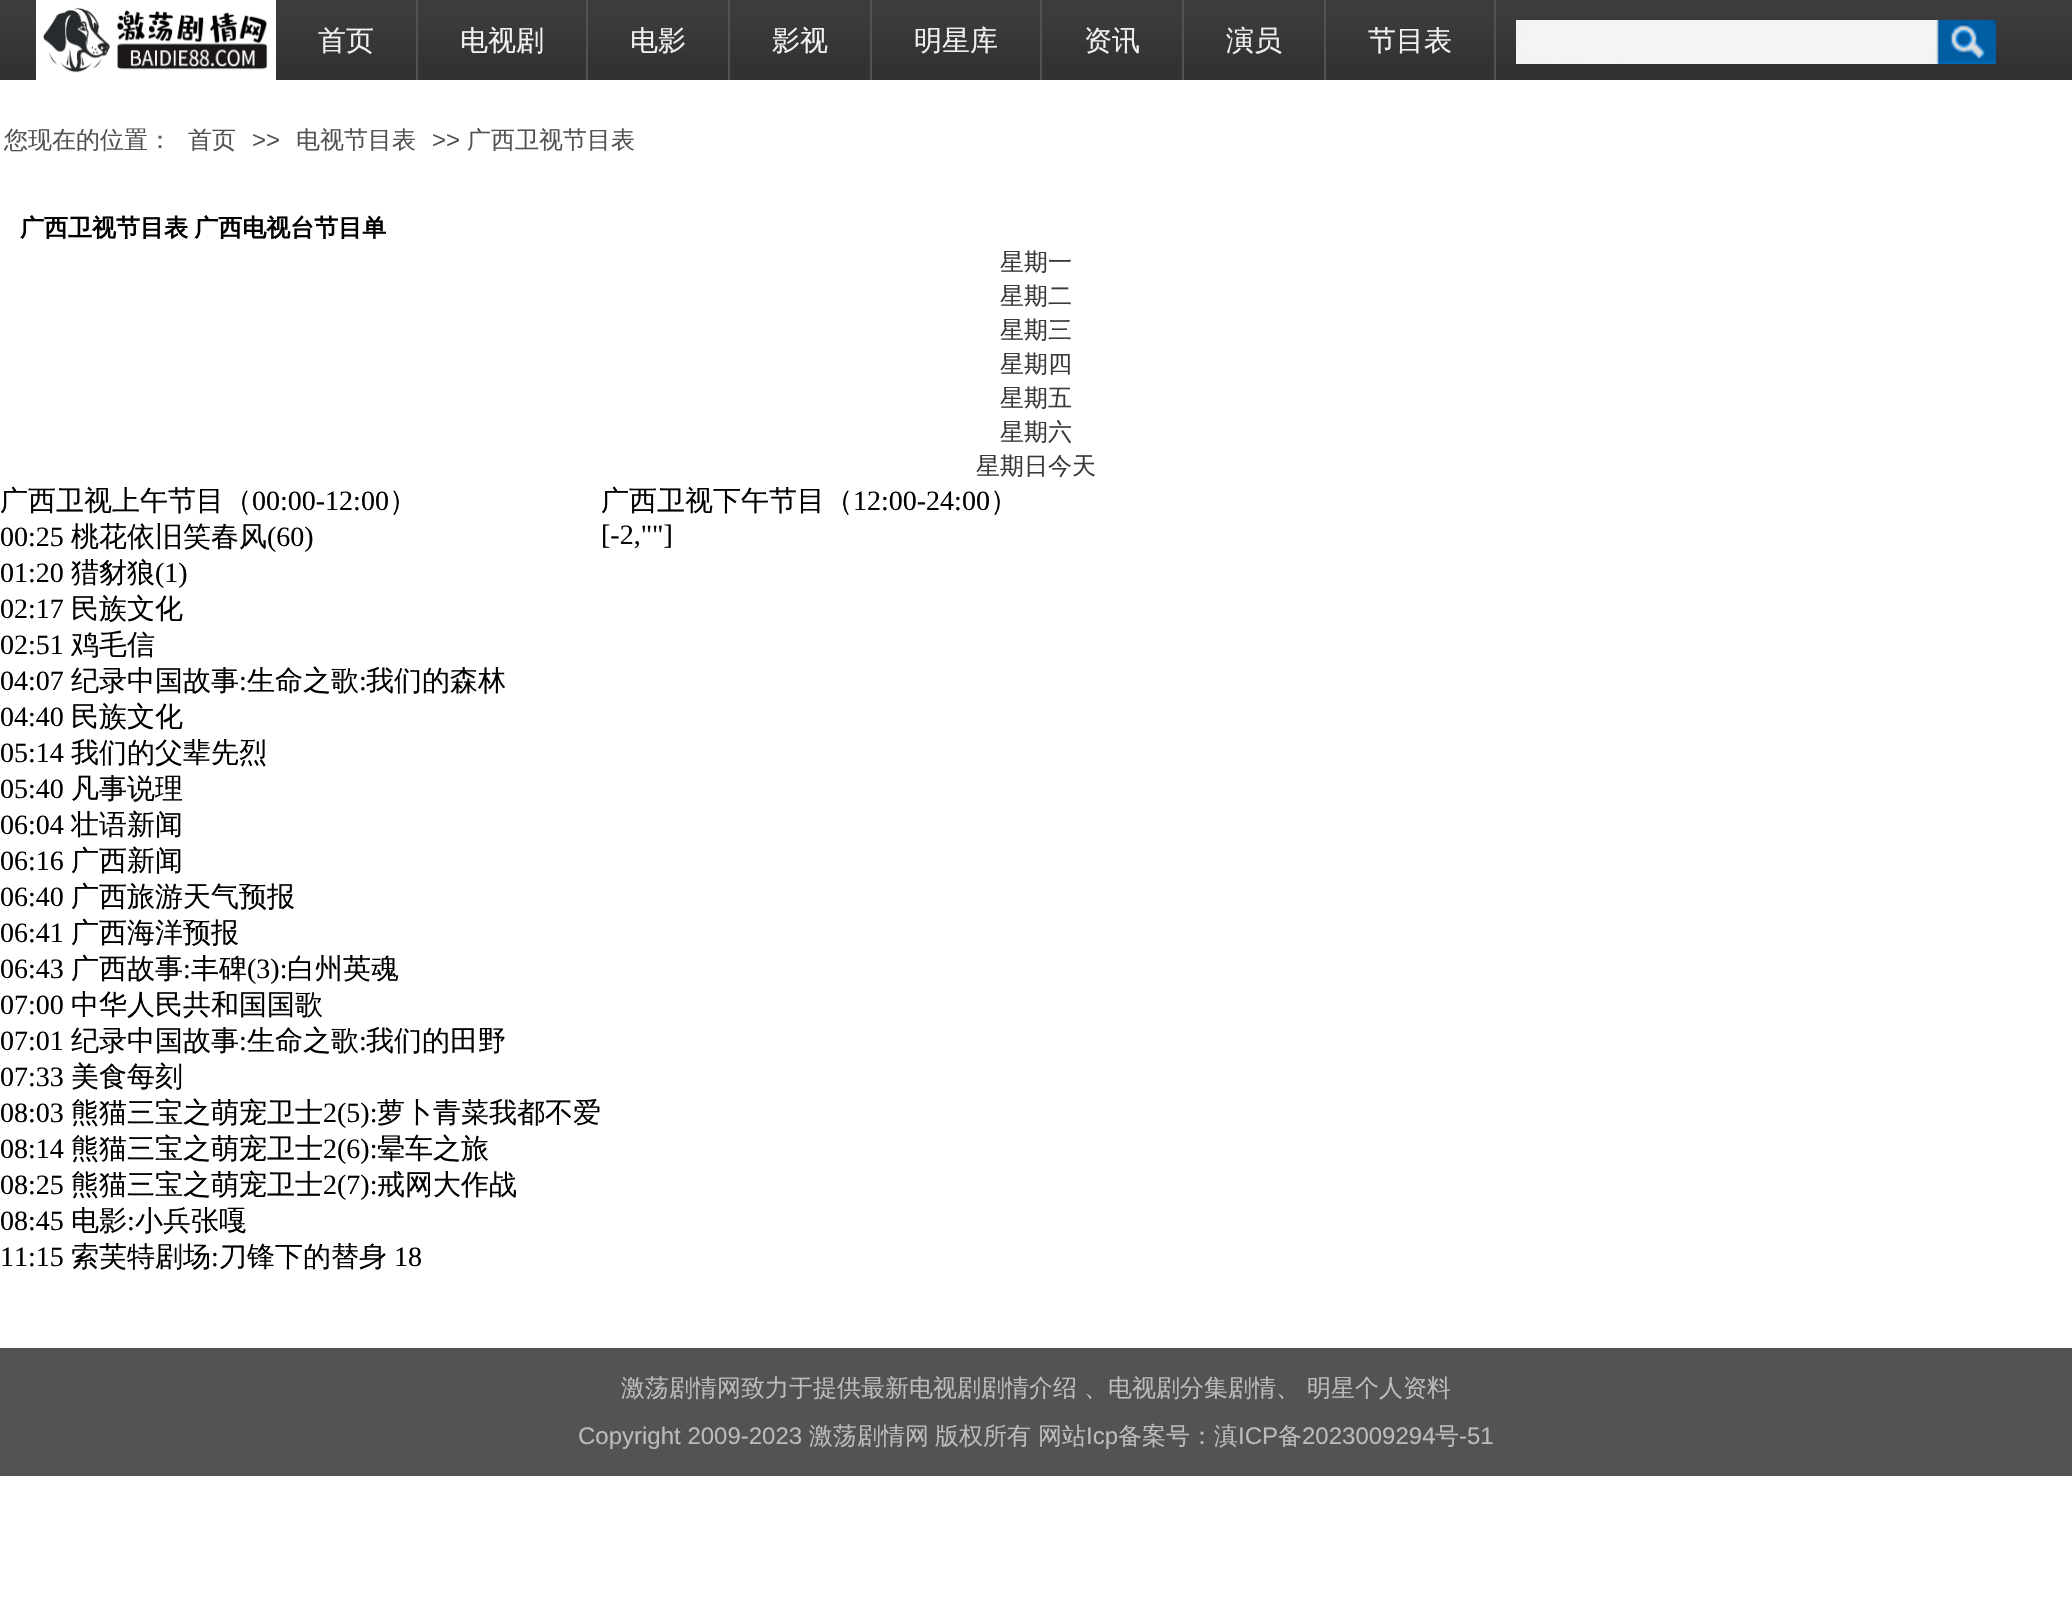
void draw(SkCanvas* canvas) {
  SkPaint paint;
  paint.setAntiAlias(true);
  auto face = [&](const char* family, int weight, float size, bool italic = false) {
    SkFontStyle style(weight, SkFontStyle::kNormal_Width,
      italic ? SkFontStyle::kItalic_Slant : SkFontStyle::kUpright_Slant);
    SkFont result(fontMgr->matchFamilyStyle(family, style), size);
    result.setSubpixel(true);
    return result;
  };
  auto writeSpaced = [&](const char* s, float x, float y, const SkFont& font, const SkPaint& ink, float letter, float word) {
    std::vector<SkGlyphID> glyphs(font.countText(s, strlen(s), SkTextEncoding::kUTF8));
    std::vector<float> xs(glyphs.size());
    font.textToGlyphs(s, strlen(s), SkTextEncoding::kUTF8, glyphs);
    font.getXPos(glyphs, xs, x);
    float extra = 0;
    for (size_t i = 0; i < glyphs.size(); i++) {
      xs[i] += extra;
      extra += letter + word * (glyphs[i] == font.unicharToGlyph(' '));
    }
    canvas->drawTextBlob(SkTextBlob::MakeFromPosHGlyphs(glyphs, xs, y, font), 0, 0, ink);
  };
  auto paste = [&](const char* path, float x, float y, float w, float h) {
    auto image = SkImages::DeferredFromEncodedData(SkData::MakeFromFileName(path));
    canvas->drawImageRect(image, SkRect::MakeXYWH(x, y, w, h), SkSamplingOptions());
  };
  canvas->clear(0xffffffff);
  paste("img/1.png", 0, 0, 2072, 80);
  paste("img/2.png", 36, 0, 240, 80);
  {
    const struct { float x, y, w, h; SkColor color; } items[] = {
      {416, 0, 2, 80, 0xff525252},
      {586, 0, 2, 80, 0xff525252},
      {728, 0, 2, 80, 0xff525252},
      {870, 0, 2, 80, 0xff525252},
      {1040, 0, 2, 80, 0xff525252},
      {1182, 0, 2, 80, 0xff525252},
      {1324, 0, 2, 80, 0xff525252},
      {1494, 0, 2, 80, 0xff525252},
    };
    for (auto [x, y, w, h, color] : items) {
      paint.setColor(color);
      canvas->drawRect(SkRect::MakeXYWH(x, y, w, h), paint);
    }
  }
  paste("img/3.png", 1516, 20, 480, 44);
  paint.setColor(0xff535353);
  canvas->drawRect(SkRect::MakeXYWH(0, 1348, 2072, 128), paint);
  auto f0 = face("WenQuanYi Zen Hei", 500, 28);
  paint.setColor(0xfff1f1f1);
  {
    const struct { const char* s; float x, y; } items[] = {
      {"首页", 318, 50},
      {"电视剧", 460, 50},
      {"电影", 630, 50},
      {"影视", 772, 50},
      {"明星库", 914, 50},
      {"资讯", 1084, 50},
      {"演员", 1226, 50},
      {"节目表", 1368, 50},
    };
    for (auto [s, x, y] : items) {
      canvas->drawString(s, x, y, f0, paint);
    }
  }
  auto f1 = face("WenQuanYi Zen Hei", 500, 24);
  paint.setColor(0xff525252);
  canvas->drawString("您现在的位置：", 4, 148, f1, paint);
  canvas->drawString("首页", 188, 148, f1, paint);
  auto f2 = face("Liberation Sans", 400, 24);
  canvas->drawString(">>", 252, 148, f2, paint);
  canvas->drawString("电视节目表", 296, 148, f1, paint);
  canvas->drawString(">>", 432, 148, f2, paint);
  canvas->drawString("广西卫视节目表", 467, 148, f1, paint);
  auto f3 = face("WenQuanYi Zen Hei", 700, 24);
  paint.setColor(0xff000000);
  writeSpaced("广西卫视节目表 广西电视台节目单", 20, 236, f3, paint, 0, -1);
  paint.setColor(0xff3a3a3a);
  {
    const struct { const char* s; float x, y; } items[] = {
      {"星期一", 1000, 270},
      {"星期二", 1000, 304},
      {"星期三", 1000, 338},
      {"星期四", 1000, 372},
      {"星期五", 1000, 406},
      {"星期六", 1000, 440},
      {"星期日今天", 976, 474},
    };
    for (auto [s, x, y] : items) {
      canvas->drawString(s, x, y, f1, paint);
    }
  }
  paint.setColor(0xff000000);
  canvas->drawString("广西卫视上午节目（", 0, 510, f0, paint);
  auto f4 = face("Liberation Serif", 400, 28);
  canvas->drawString("00:00-12:00", 252, 510, f4, paint);
  canvas->drawString("）", 389, 510, f0, paint);
  canvas->drawString("00:25", 0, 546, f4, paint);
  canvas->drawString("桃花依旧笑春风", 71, 546, f0, paint);
  canvas->drawString("(60)", 267, 546, f4, paint);
  canvas->drawString("01:20", 0, 582, f4, paint);
  canvas->drawString("猎豺狼", 71, 582, f0, paint);
  canvas->drawString("(1)", 155, 582, f4, paint);
  canvas->drawString("02:17", 0, 618, f4, paint);
  canvas->drawString("民族文化", 71, 618, f0, paint);
  canvas->drawString("02:51", 0, 654, f4, paint);
  canvas->drawString("鸡毛信", 71, 654, f0, paint);
  canvas->drawString("04:07", 0, 690, f4, paint);
  canvas->drawString("纪录中国故事", 71, 690, f0, paint);
  canvas->drawString(":", 239, 690, f4, paint);
  canvas->drawString("生命之歌", 247, 690, f0, paint);
  canvas->drawString(":", 359, 690, f4, paint);
  canvas->drawString("我们的森林", 366, 690, f0, paint);
  canvas->drawString("04:40", 0, 726, f4, paint);
  canvas->drawString("民族文化", 71, 726, f0, paint);
  canvas->drawString("05:14", 0, 762, f4, paint);
  canvas->drawString("我们的父辈先烈", 71, 762, f0, paint);
  canvas->drawString("05:40", 0, 798, f4, paint);
  canvas->drawString("凡事说理", 71, 798, f0, paint);
  canvas->drawString("06:04", 0, 834, f4, paint);
  canvas->drawString("壮语新闻", 71, 834, f0, paint);
  canvas->drawString("06:16", 0, 870, f4, paint);
  canvas->drawString("广西新闻", 71, 870, f0, paint);
  canvas->drawString("06:40", 0, 906, f4, paint);
  canvas->drawString("广西旅游天气预报", 71, 906, f0, paint);
  canvas->drawString("06:41", 0, 942, f4, paint);
  canvas->drawString("广西海洋预报", 71, 942, f0, paint);
  canvas->drawString("06:43", 0, 978, f4, paint);
  canvas->drawString("广西故事", 71, 978, f0, paint);
  canvas->drawString(":", 183, 978, f4, paint);
  canvas->drawString("丰碑", 191, 978, f0, paint);
  canvas->drawString("(3):", 247, 978, f4, paint);
  canvas->drawString("白州英魂", 287, 978, f0, paint);
  canvas->drawString("07:00", 0, 1014, f4, paint);
  canvas->drawString("中华人民共和国国歌", 71, 1014, f0, paint);
  canvas->drawString("07:01", 0, 1050, f4, paint);
  canvas->drawString("纪录中国故事", 71, 1050, f0, paint);
  canvas->drawString(":", 239, 1050, f4, paint);
  canvas->drawString("生命之歌", 247, 1050, f0, paint);
  canvas->drawString(":", 359, 1050, f4, paint);
  canvas->drawString("我们的田野", 366, 1050, f0, paint);
  canvas->drawString("07:33", 0, 1086, f4, paint);
  canvas->drawString("美食每刻", 71, 1086, f0, paint);
  canvas->drawString("08:03", 0, 1122, f4, paint);
  canvas->drawString("熊猫三宝之萌宠卫士", 71, 1122, f0, paint);
  canvas->drawString("2(5):", 323, 1122, f4, paint);
  canvas->drawString("萝卜青菜我都不爱", 377, 1122, f0, paint);
  canvas->drawString("08:14", 0, 1158, f4, paint);
  canvas->drawString("熊猫三宝之萌宠卫士", 71, 1158, f0, paint);
  canvas->drawString("2(6):", 323, 1158, f4, paint);
  canvas->drawString("晕车之旅", 377, 1158, f0, paint);
  canvas->drawString("08:25", 0, 1194, f4, paint);
  canvas->drawString("熊猫三宝之萌宠卫士", 71, 1194, f0, paint);
  canvas->drawString("2(7):", 323, 1194, f4, paint);
  canvas->drawString("戒网大作战", 377, 1194, f0, paint);
  canvas->drawString("08:45", 0, 1230, f4, paint);
  canvas->drawString("电影", 71, 1230, f0, paint);
  canvas->drawString(":", 127, 1230, f4, paint);
  canvas->drawString("小兵张嘎", 135, 1230, f0, paint);
  canvas->drawString("11:15", 0, 1266, f4, paint);
  canvas->drawString("索芙特剧场", 71, 1266, f0, paint);
  canvas->drawString(":", 211, 1266, f4, paint);
  canvas->drawString("刀锋下的替身", 219, 1266, f0, paint);
  canvas->drawString("18", 394, 1266, f4, paint);
  canvas->drawString("广西卫视下午节目（", 601, 510, f0, paint);
  canvas->drawString("12:00-24:00", 853, 510, f4, paint);
  canvas->drawString("）", 990, 510, f0, paint);
  canvas->drawString("[-2,\"\"]", 601, 544, f4, paint);
  paint.setColor(0xffbbbbbb);
  {
    const struct { const char* s; float x, y; } items[] = {
      {"激荡剧情网致力于提供最新电视剧剧情介绍", 621, 1396},
      {"、电视剧分集剧情、", 1084, 1396},
      {"明星个人资料", 1307, 1396},
    };
    for (auto [s, x, y] : items) {
      canvas->drawString(s, x, y, f1, paint);
    }
  }
  canvas->drawString("Copyright 2009-2023", 578, 1444, f2, paint);
  {
    const struct { const char* s; float x, y; } items[] = {
      {"激荡剧情网", 809, 1444},
      {"版权所有", 935, 1444},
      {"网站", 1038, 1444},
    };
    for (auto [s, x, y] : items) {
      canvas->drawString(s, x, y, f1, paint);
    }
  }
  canvas->drawString("Icp", 1086, 1444, f2, paint);
  canvas->drawString("备案号：滇", 1118, 1444, f1, paint);
  canvas->drawString("ICP", 1238, 1444, f2, paint);
  canvas->drawString("备", 1278, 1444, f1, paint);
  canvas->drawString("2023009294", 1302, 1444, f2, paint);
  canvas->drawString("号", 1435, 1444, f1, paint);
  canvas->drawString("-51", 1459, 1444, f2, paint);
}
